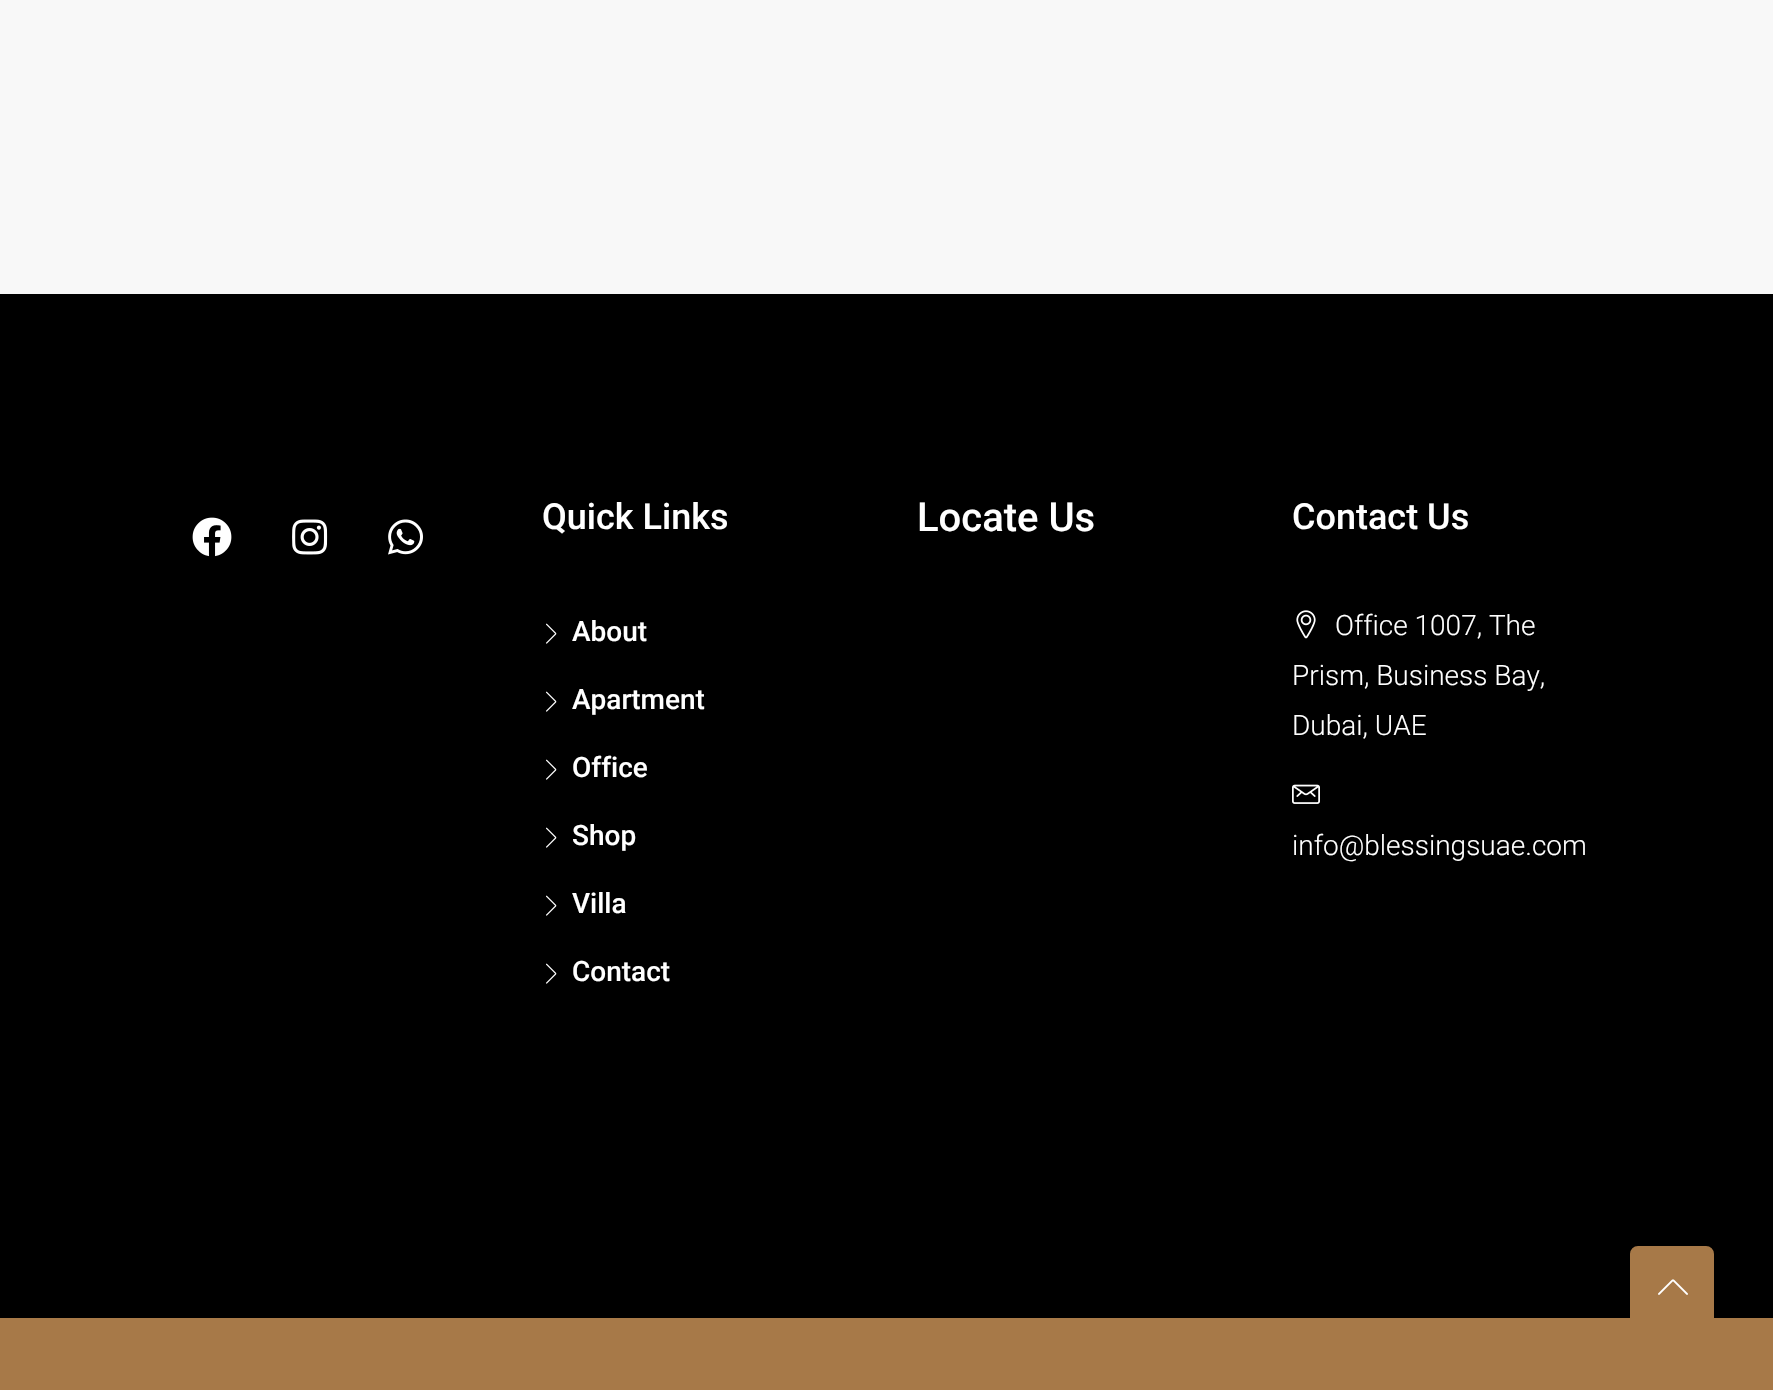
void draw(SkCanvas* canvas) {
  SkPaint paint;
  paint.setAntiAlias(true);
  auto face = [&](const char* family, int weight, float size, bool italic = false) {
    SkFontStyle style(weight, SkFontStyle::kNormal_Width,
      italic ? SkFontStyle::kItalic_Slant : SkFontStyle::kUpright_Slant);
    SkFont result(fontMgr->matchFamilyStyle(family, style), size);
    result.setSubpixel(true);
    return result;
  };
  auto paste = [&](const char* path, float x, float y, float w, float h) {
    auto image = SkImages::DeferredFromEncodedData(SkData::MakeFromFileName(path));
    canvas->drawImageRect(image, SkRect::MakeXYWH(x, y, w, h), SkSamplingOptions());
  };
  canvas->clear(0xfff8f8f8);
  paint.setColor(0xff000000);
  canvas->drawRect(SkRect::MakeXYWH(0, 294, 1773, 1024), paint);
  paste("img/1.png", 192, 517, 40, 40);
  paste("img/2.png", 292, 519, 36, 36);
  paste("img/3.png", 388, 519, 35, 36);
  paste("img/4.png", 546, 623, 11, 21);
  paste("img/4.png", 546, 691, 11, 21);
  paste("img/4.png", 546, 759, 11, 21);
  paste("img/4.png", 546, 827, 11, 21);
  paste("img/4.png", 546, 895, 11, 21);
  paste("img/4.png", 546, 963, 11, 21);
  paste("img/5.png", 1296, 610, 20, 29);
  paste("img/6.png", 1292, 784, 28, 20);
  paint.setColor(0xffa77948);
  canvas->drawRect(SkRect::MakeXYWH(0, 1318, 1773, 72), paint);
  canvas->drawRoundRect(SkRect::MakeXYWH(1631, 1247, 82, 82), 7, 7, paint);
  paint.setStroke(true);
  paint.setStrokeWidth(2);
  canvas->drawRoundRect(SkRect::MakeXYWH(1631, 1247, 82, 82), 7, 7, paint);
  paste("img/7.png", 1658, 1279, 30, 16);
  auto f0 = face("Roboto", 500, 36);
  paint.setStroke(false);
  paint.setColor(0xffffffff);
  canvas->drawString("Quick Links", 542, 529, f0, paint);
  auto f1 = face("Roboto", 500, 28);
  {
    const struct { const char* s; float x, y; } items[] = {
      {"About", 572, 641},
      {"Apartment", 572, 709},
      {"Office", 572, 777},
      {"Shop", 572, 845},
      {"Villa", 572, 913},
      {"Contact", 572, 981},
    };
    for (auto [s, x, y] : items) {
      canvas->drawString(s, x, y, f1, paint);
    }
  }
  auto f2 = face("Roboto", 500, 40);
  canvas->drawString("Locate Us", 917, 531, f2, paint);
  canvas->drawString("Contact Us", 1292, 529, f0, paint);
  auto f3 = face("Roboto", 300, 28);
  {
    const struct { const char* s; float x, y; } items[] = {
      {"Office 1007, The", 1335, 635},
      {"Prism, Business Bay,", 1292, 685},
      {"Dubai, UAE", 1292, 735},
      {"info@blessingsuae.com", 1292, 855},
    };
    for (auto [s, x, y] : items) {
      canvas->drawString(s, x, y, f3, paint);
    }
  }
}
